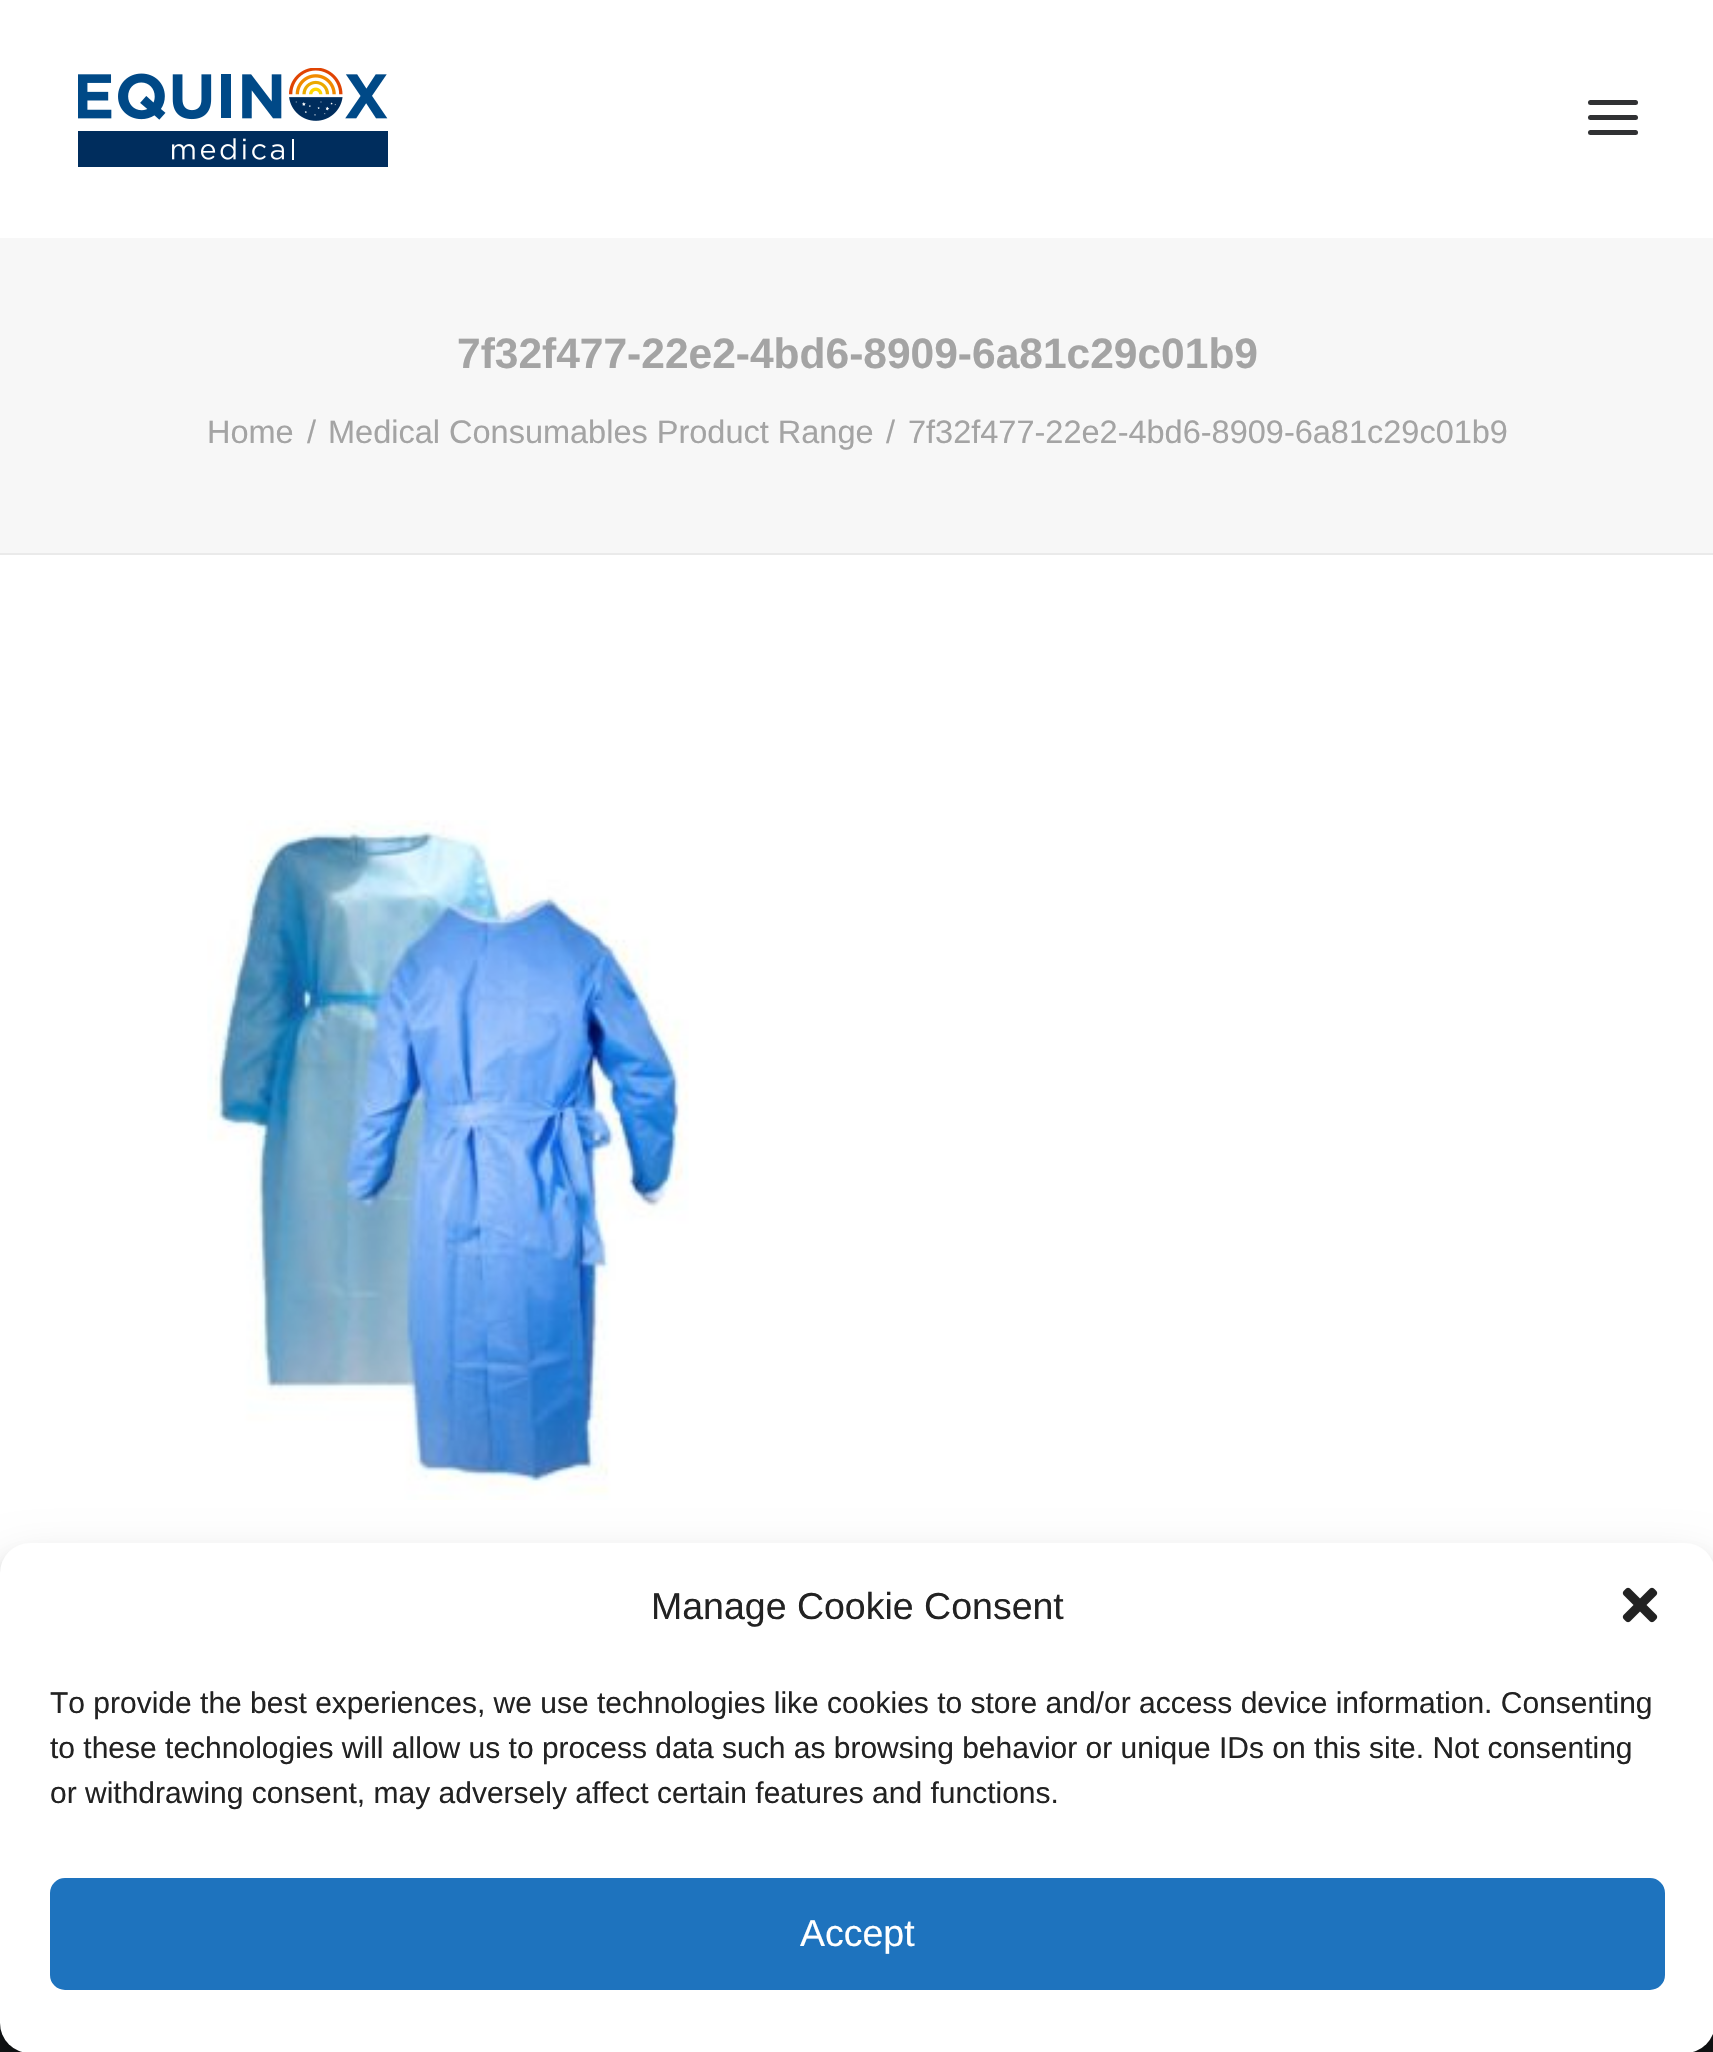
void draw(SkCanvas* canvas) {
  SkPaint paint;
  paint.setAntiAlias(true);
  auto face = [&](const char* family, int weight, float size, bool italic = false) {
    SkFontStyle style(weight, SkFontStyle::kNormal_Width,
      italic ? SkFontStyle::kItalic_Slant : SkFontStyle::kUpright_Slant);
    SkFont result(fontMgr->matchFamilyStyle(family, style), size);
    result.setSubpixel(true);
    return result;
  };
  auto paste = [&](const char* path, float x, float y, float w, float h) {
    auto image = SkImages::DeferredFromEncodedData(SkData::MakeFromFileName(path));
    canvas->drawImageRect(image, SkRect::MakeXYWH(x, y, w, h), SkSamplingOptions());
  };
  canvas->clear(0xfff7f7f7);
  paint.setColor(0xffffffff);
  canvas->drawRect(SkRect::MakeXYWH(0, 0, 1713, 238), paint);
  paste("img/1.png", 78, 68, 310, 99);
  paint.setColor(0xff303133);
  canvas->drawRoundRect(SkRect::MakeXYWH(1588, 115, 50, 5), 2.5f, 2.5f, paint);
  canvas->drawRoundRect(SkRect::MakeXYWH(1588, 100, 50, 5), 2.5f, 2.5f, paint);
  canvas->drawRoundRect(SkRect::MakeXYWH(1588, 130, 50, 5), 2.5f, 2.5f, paint);
  paint.setColor(0xffeaeaea);
  canvas->drawRect(SkRect::MakeXYWH(0, 553, 1713, 2), paint);
  paint.setColor(0xffffffff);
  canvas->drawRect(SkRect::MakeXYWH(0, 555, 1713, 1018), paint);
  paste("img/2.png", 207, 820, 482, 680);
  paint.setColor(0xff141618);
  canvas->drawRect(SkRect::MakeXYWH(0, 2023, 1713, 29), paint);
  paint.setColor(0x3b000000);
  paint.setMaskFilter(SkMaskFilter::MakeBlur(kNormal_SkBlurStyle, 7.5f));
  canvas->drawRoundRect(SkRect::MakeXYWH(0, 1558, 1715, 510), 30, 30, paint);
  paint.setMaskFilter(nullptr);
  paint.setColor(0x30000000);
  paint.setMaskFilter(SkMaskFilter::MakeBlur(kNormal_SkBlurStyle, 25));
  canvas->drawRoundRect(SkRect::MakeXYWH(0, 1568, 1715, 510), 30, 30, paint);
  paint.setMaskFilter(nullptr);
  paint.setColor(0xffffffff);
  canvas->drawRoundRect(SkRect::MakeXYWH(0, 1543, 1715, 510), 30, 30, paint);
  paste("img/3.png", 1622, 1587, 36, 36);
  paint.setColor(0xff1e73be);
  canvas->drawRoundRect(SkRect::MakeXYWH(51.5f, 1879.5f, 1612, 109), 13.5f, 13.5f, paint);
  paint.setStroke(true);
  paint.setStrokeWidth(3);
  canvas->drawRoundRect(SkRect::MakeXYWH(51.5f, 1879.5f, 1612, 109), 13.5f, 13.5f, paint);
  auto f0 = face("Liberation Sans", 700, 42.5f);
  paint.setStroke(false);
  paint.setColor(0xffa4a4a4);
  canvas->drawString("7f32f477-22e2-4bd6-8909-6a81c29c01b9", 457, 368, f0, paint);
  auto f1 = face("Liberation Sans", 400, 32.5f);
  {
    const struct { const char* s; float x, y; } items[] = {
      {"Home", 207, 443},
      {"/", 307, 443},
      {"Medical Consumables Product Range", 328, 443},
      {"/", 886, 443},
      {"7f32f477-22e2-4bd6-8909-6a81c29c01b9", 908, 443},
    };
    for (auto [s, x, y] : items) {
      canvas->drawString(s, x, y, f1, paint);
    }
  }
  auto f2 = face("Liberation Sans", 400, 37.5f);
  paint.setColor(0xff222222);
  canvas->drawString("Manage Cookie Consent", 651, 1619, f2, paint);
  auto f3 = face("Liberation Sans", 400, 30);
  {
    const struct { const char* s; float x, y; } items[] = {
      {"To provide the best experiences, we use technologies like cookies to store and/or access device information. Consenting", 50, 1713},
      {"to these technologies will allow us to process data such as browsing behavior or unique IDs on this site. Not consenting", 50, 1758},
      {"or withdrawing consent, may adversely affect certain features and functions.", 50, 1803},
    };
    for (auto [s, x, y] : items) {
      canvas->drawString(s, x, y, f3, paint);
    }
  }
  paint.setColor(0xffffffff);
  canvas->drawString("Accept", 800, 1946, f2, paint);
}
